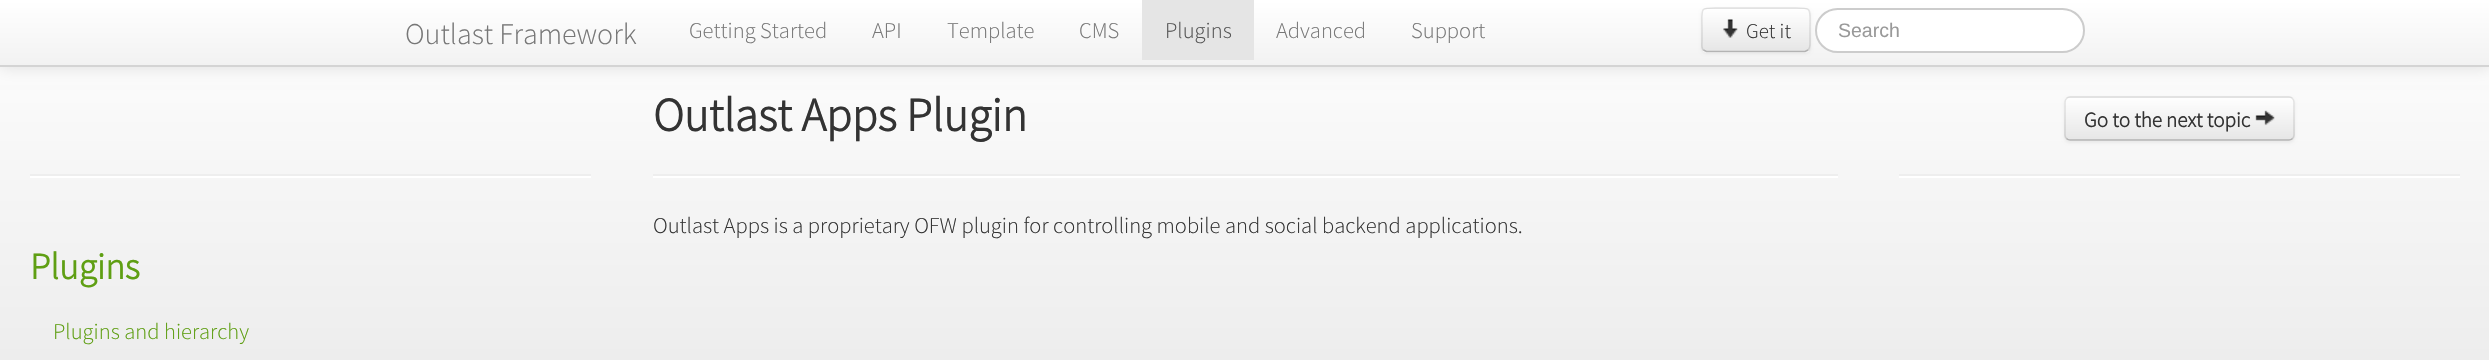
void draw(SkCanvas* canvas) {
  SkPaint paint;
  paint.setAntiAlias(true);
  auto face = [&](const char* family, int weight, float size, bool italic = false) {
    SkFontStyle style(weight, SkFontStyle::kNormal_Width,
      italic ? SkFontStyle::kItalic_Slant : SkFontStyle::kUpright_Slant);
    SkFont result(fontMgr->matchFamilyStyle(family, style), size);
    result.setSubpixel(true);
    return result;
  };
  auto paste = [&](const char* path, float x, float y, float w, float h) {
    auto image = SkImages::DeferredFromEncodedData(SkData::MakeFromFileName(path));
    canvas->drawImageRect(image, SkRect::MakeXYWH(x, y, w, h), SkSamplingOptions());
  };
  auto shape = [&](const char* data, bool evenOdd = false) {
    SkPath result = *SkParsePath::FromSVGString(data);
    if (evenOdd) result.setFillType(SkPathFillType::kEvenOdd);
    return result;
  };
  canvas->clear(0xffffffff);
  {
    const SkColor colors[] = {0xffffffff, 0xfff6f6f6, 0xffededed};
    const float stops[] = {0, 0.47f, 1};
    const SkPoint ends[] = {{1245, 0}, {1245, 360}};
    paint.setShader(SkGradientShader::MakeLinear(ends, colors, stops, 3, SkTileMode::kClamp));
    paint.setAlpha(255);
  }
  canvas->drawRect(SkRect::MakeXYWH(0, 67, 2489, 293), paint);
  paint.setShader(nullptr);
  paint.setColor(0x1a000000);
  paint.setMaskFilter(SkMaskFilter::MakeBlur(kNormal_SkBlurStyle, 7.5f));
  canvas->drawRect(SkRect::MakeXYWH(0, 2, 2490, 66), paint);
  paint.setMaskFilter(nullptr);
  {
    const SkColor colors[] = {0xffffffff, 0xfff2f2f2};
    const float stops[] = {0, 1};
    const SkPoint ends[] = {{1245, 0}, {1245, 65}};
    paint.setShader(SkGradientShader::MakeLinear(ends, colors, stops, 2, SkTileMode::kClamp));
    paint.setAlpha(255);
  }
  canvas->drawRect(SkRect::MakeXYWH(0, 0, 2489, 65), paint);
  paint.setShader(nullptr);
  paint.setColor(0xffd4d4d4);
  canvas->drawRect(SkRect::MakeXYWH(0, 65, 2489, 2), paint);
  paint.setColor(0xffe5e5e5);
  canvas->drawRect(SkRect::MakeXYWH(1142, 0, 112, 60), paint);
  paint.setColor(0x0d000000);
  paint.setMaskFilter(SkMaskFilter::MakeBlur(kNormal_SkBlurStyle, 1.5f));
  canvas->drawRoundRect(SkRect::MakeXYWH(1701, 9, 110, 45), 6, 6, paint);
  paint.setMaskFilter(nullptr);
  paint.setColor(0xfff5f5f5);
  canvas->drawRoundRect(SkRect::MakeXYWH(1701, 8, 110, 45), 6, 6, paint);
  canvas->save();
  canvas->clipPath(shape("M1707 8H1805C1808.5 8 1811 10.5 1811 14V47C1811 50.5 1808.5 53 1805 53H1707C1703.5 53 1701 50.5 1701 47V14C1701 10.5 1703.5 8 1707 8Z"), true);
  {
    const SkColor colors[] = {0xffffffff, 0xffe6e6e6};
    const float stops[] = {0, 1};
    const SkPoint ends[] = {{1756, 9}, {1756, 51}};
    paint.setShader(SkGradientShader::MakeLinear(ends, colors, stops, 2, SkTileMode::kClamp));
    paint.setAlpha(255);
  }
  canvas->drawRect(SkRect::MakeXYWH(1701, 9, 110, 42), paint);
  canvas->restore();
  paint.setStroke(true);
  paint.setStrokeWidth(1.5f);
  paint.setShader(nullptr);
  paint.setColor(0xffb3b3b3);
  canvas->drawPath(shape("M1808 50L1805 51.5H1706.5L1703.5 50"), paint);
  paint.setColor(0x1a000000);
  canvas->drawPath(shape("M1703.5 50C1701 48 1702 44 1702 41V30C1702 5.5 1698 8 1723 8H1788C1813.5 8 1810 5.5 1810 30V41C1810 44 1810.5 48 1808 50"), paint);
  paste("img/1.png", 1723, 19, 15, 19);
  paint.setStroke(false);
  paint.setColor(0xffffffff);
  canvas->drawRoundRect(SkRect::MakeXYWH(1816, 9, 268, 43), 21.5f, 21.5f, paint);
  paint.setStroke(true);
  paint.setStrokeWidth(2);
  paint.setColor(0xffcccccc);
  canvas->drawRoundRect(SkRect::MakeXYWH(1816, 9, 268, 43), 21.5f, 21.5f, paint);
  paint.setStroke(false);
  paint.setColor(0xffeeeeee);
  canvas->drawRect(SkRect::MakeXYWH(653, 174, 1185, 2), paint);
  paint.setColor(0xffffffff);
  canvas->drawRect(SkRect::MakeXYWH(653, 176, 1185, 2), paint);
  paint.setColor(0x0d000000);
  paint.setMaskFilter(SkMaskFilter::MakeBlur(kNormal_SkBlurStyle, 1.5f));
  canvas->drawRoundRect(SkRect::MakeXYWH(2064, 98, 231, 45), 6, 6, paint);
  paint.setMaskFilter(nullptr);
  paint.setColor(0xfff5f5f5);
  canvas->drawRoundRect(SkRect::MakeXYWH(2064, 96, 231, 45), 6, 6, paint);
  canvas->save();
  canvas->clipPath(shape("M2070 96H2289C2292.5 96 2295 98.5 2295 102V135C2295 138.5 2292.5 141 2289 141H2070C2066.5 141 2064 138.5 2064 135V102C2064 98.5 2066.5 96 2070 96Z"), true);
  {
    const SkColor colors[] = {0xffffffff, 0xffe6e6e6};
    const float stops[] = {0, 1};
    const SkPoint ends[] = {{2180, 97}, {2180, 140}};
    paint.setShader(SkGradientShader::MakeLinear(ends, colors, stops, 2, SkTileMode::kClamp));
    paint.setAlpha(255);
  }
  canvas->drawRect(SkRect::MakeXYWH(2064, 98, 231, 42), paint);
  canvas->restore();
  paint.setStroke(true);
  paint.setStrokeWidth(1.5f);
  paint.setShader(nullptr);
  paint.setColor(0xffb3b3b3);
  canvas->drawPath(shape("M2292.5 138.5C2291.5 139.5 2290.5 140 2289 140H2070C2068.5 140 2067.5 139.5 2066.5 138.5"), paint);
  paint.setColor(0x1a000000);
  canvas->drawPath(shape("M2066.5 138.5C2065.5 137.5 2065 136.5 2065 135V102C2065 100.5 2065.5 99.5 2066.5 98.5C2067.5 97.5 2068.5 97 2070 97H2289C2290.5 97 2291.5 97.5 2292.5 98.5C2293.5 99.5 2294 100.5 2294 102V135C2294 136.5 2293.5 137.5 2292.5 138.5"), paint);
  paste("img/2.png", 2255, 110, 20, 16);
  paint.setStroke(false);
  {
    const struct { float x, y, w, h; SkColor color; } items[] = {
      {1899, 174, 561, 2, 0xffeeeeee},
      {1899, 176, 561, 2, 0xffffffff},
      {30, 174, 561, 2, 0xffeeeeee},
      {30, 176, 561, 2, 0xffffffff},
    };
    for (auto [x, y, w, h, color] : items) {
      paint.setColor(color);
      canvas->drawRect(SkRect::MakeXYWH(x, y, w, h), paint);
    }
  }
  auto f0 = face("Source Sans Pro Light", 300, 30);
  paint.setColor(0xff777777);
  canvas->drawString("Outlast Framework", 405, 44, f0, paint);
  auto f1 = face("Source Sans Pro Light", 300, 22.5f);
  {
    const struct { const char* s; float x, y; } items[] = {
      {"Getting Started", 689, 38},
      {"API", 872, 38},
      {"Template", 947, 38},
      {"CMS", 1079, 38},
    };
    for (auto [s, x, y] : items) {
      canvas->drawString(s, x, y, f1, paint);
    }
  }
  paint.setColor(0xff555555);
  canvas->drawString("Plugins", 1165, 38, f1, paint);
  paint.setColor(0xff777777);
  canvas->drawString("Advanced", 1276, 38, f1, paint);
  canvas->drawString("Support", 1411, 38, f1, paint);
  auto f2 = face("Source Sans Pro Light", 300, 21);
  paint.setColor(0xff333333);
  canvas->drawString("Get it", 1746, 38, f2, paint);
  auto f3 = face("Liberation Sans", 400, 19.5f);
  paint.setColor(0xff999999);
  canvas->drawString("Search", 1838, 37, f3, paint);
  auto f4 = face("Source Sans Pro Light", 700, 47.25f);
  paint.setColor(0xff333333);
  canvas->drawString("Outlast Apps Plugin", 653, 131, f4, paint);
  canvas->drawString("Outlast Apps is a proprietary OFW plugin for controlling mobile and social backend applications.", 653, 233, f1, paint);
  auto f5 = face("Source Sans Pro Light", 700, 21);
  canvas->drawString("Go to the next topic", 2084, 127, f5, paint);
  auto f6 = face("Source Sans Pro Light", 700, 37);
  paint.setColor(0xff5f9f13);
  canvas->drawString("Plugins", 30, 279, f6, paint);
  canvas->drawString("Plugins and hierarchy", 53, 339, f1, paint);
}
